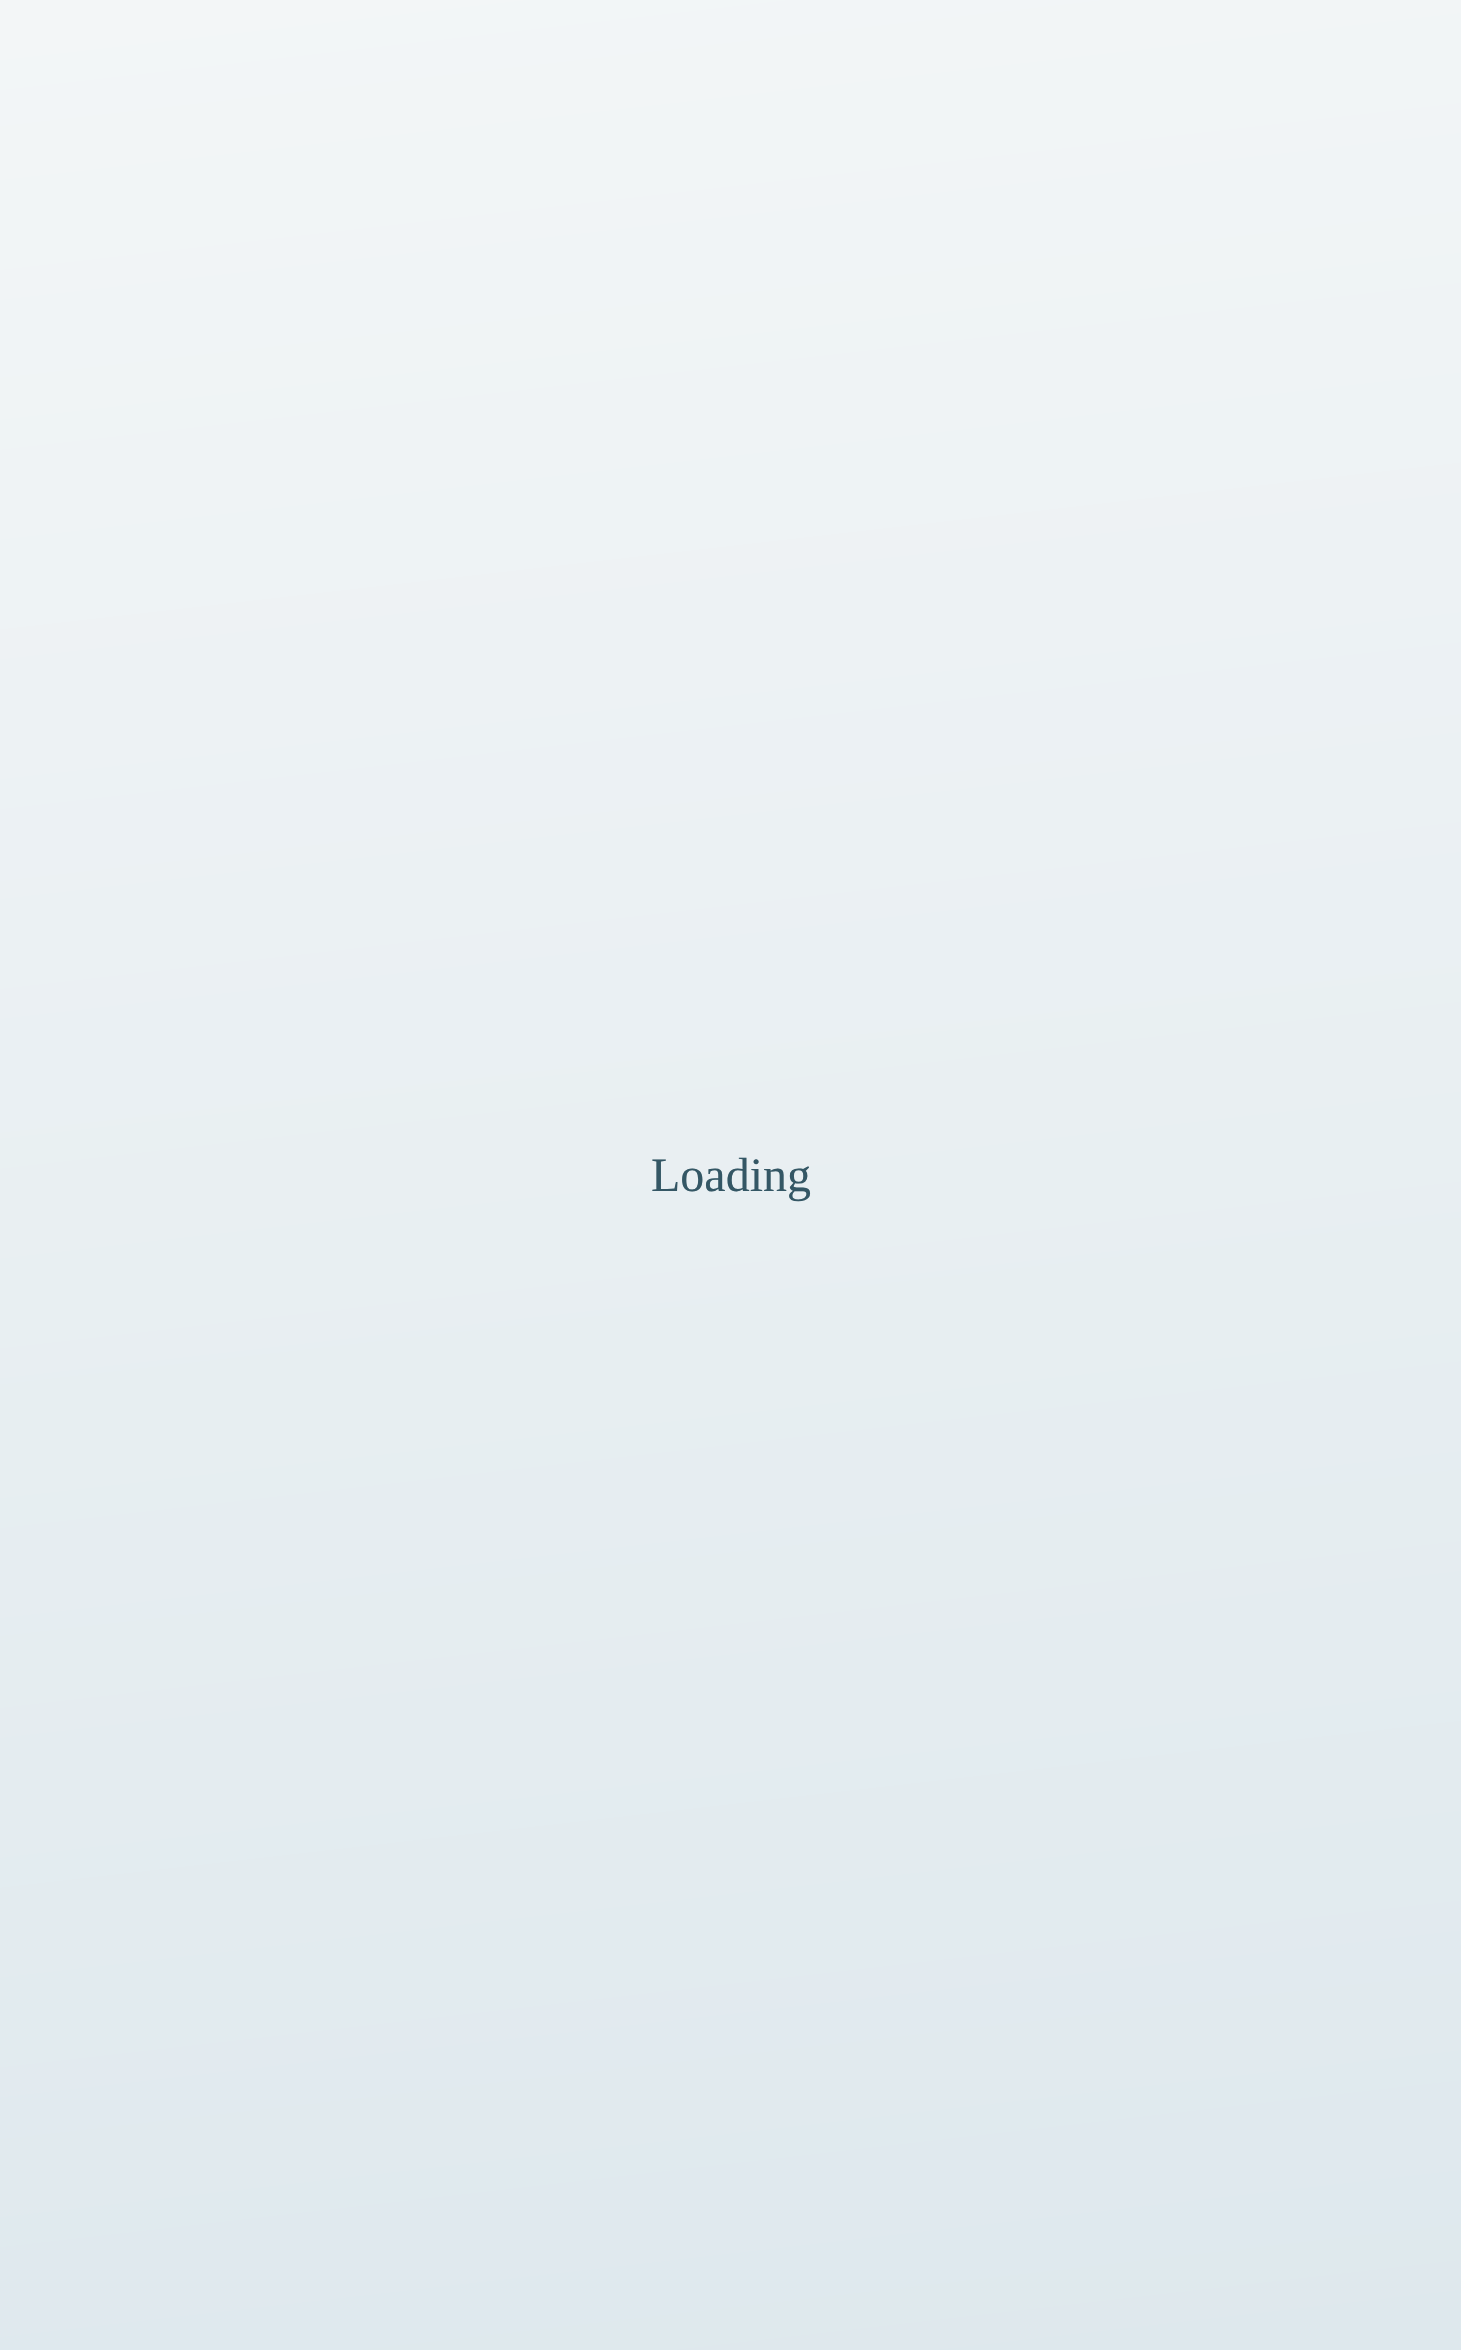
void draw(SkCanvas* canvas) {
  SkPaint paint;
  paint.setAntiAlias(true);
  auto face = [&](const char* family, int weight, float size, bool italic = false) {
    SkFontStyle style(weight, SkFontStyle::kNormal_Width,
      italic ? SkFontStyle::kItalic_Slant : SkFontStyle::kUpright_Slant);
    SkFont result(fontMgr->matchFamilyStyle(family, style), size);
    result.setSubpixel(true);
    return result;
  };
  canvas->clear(0xffffffff);
  {
    const SkColor colors[] = {0xfff3f6f7, 0xffdee8ed};
    const float stops[] = {0, 1};
    const SkPoint ends[] = {{589, -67}, {873, 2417}};
    paint.setShader(SkGradientShader::MakeLinear(ends, colors, stops, 2, SkTileMode::kClamp));
    paint.setAlpha(255);
  }
  canvas->drawRect(SkRect::MakeXYWH(0, 0, 1461, 2350), paint);
  auto f0 = face("Liberation Serif", 400, 48);
  paint.setShader(nullptr);
  paint.setColor(0xff345765);
  canvas->drawString("Loading", 651, 1191, f0, paint);
}
